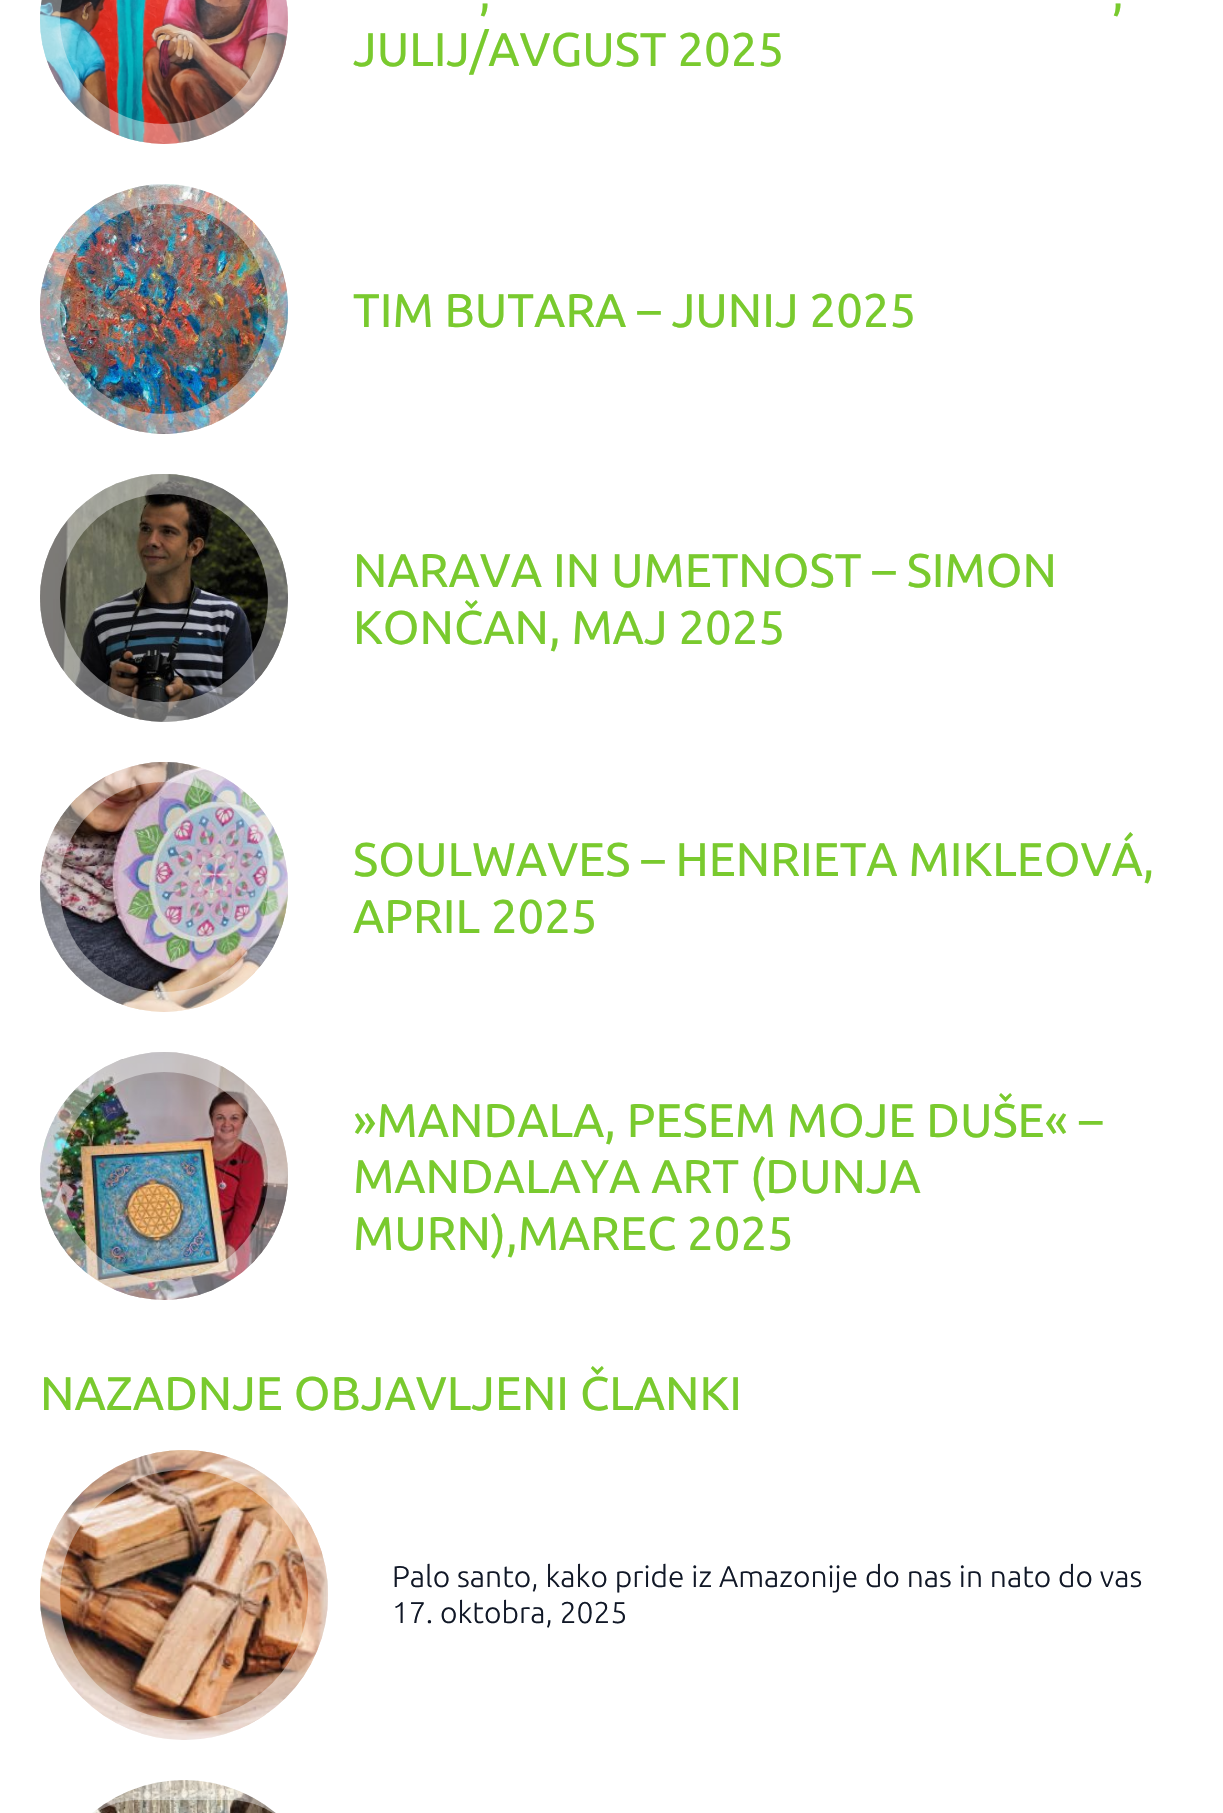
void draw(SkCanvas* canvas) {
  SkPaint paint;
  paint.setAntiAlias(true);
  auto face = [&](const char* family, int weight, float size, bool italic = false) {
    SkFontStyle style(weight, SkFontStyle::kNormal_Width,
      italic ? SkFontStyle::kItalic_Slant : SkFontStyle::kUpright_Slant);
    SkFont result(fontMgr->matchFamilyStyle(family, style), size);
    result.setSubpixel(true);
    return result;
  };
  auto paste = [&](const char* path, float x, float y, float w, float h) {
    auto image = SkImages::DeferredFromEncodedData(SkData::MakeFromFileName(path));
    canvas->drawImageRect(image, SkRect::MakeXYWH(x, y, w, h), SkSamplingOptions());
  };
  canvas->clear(0xffffffff);
  paste("img/1.png", 40, 0, 248, 144);
  paint.setStroke(true);
  paint.setStrokeWidth(20);
  paint.setColor(0x66ffffff);
  canvas->drawCircle(164, 20, 114, paint);
  paste("img/2.png", 40, 184, 248, 250);
  canvas->drawRoundRect(SkRect::MakeXYWH(50, 194, 228, 230), 114, 114, paint);
  paste("img/3.png", 40, 474, 248, 248);
  canvas->drawCircle(164, 598, 114, paint);
  paste("img/4.png", 40, 762, 248, 250);
  canvas->drawRoundRect(SkRect::MakeXYWH(50, 772, 228, 230), 114, 114, paint);
  paste("img/5.png", 40, 1052, 248, 248);
  canvas->drawCircle(164, 1176, 114, paint);
  paste("img/6.png", 40, 1450, 288, 290);
  canvas->drawRoundRect(SkRect::MakeXYWH(50, 1460, 268, 270), 134, 134, paint);
  paste("img/7.png", 92, 1780, 184, 33);
  canvas->drawRoundRect(SkRect::MakeXYWH(50, 1790, 268, 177), 134, 134, paint);
  auto f0 = face("Ubuntu", 400, 47.25f);
  paint.setStroke(false);
  paint.setColor(0xff79ca2e);
  {
    const struct { const char* s; float x, y; } items[] = {
      {",", 479, 9},
      {",", 1112, 9},
      {"JULIJ/AVGUST 2025", 353, 66},
      {"TIM BUTARA – JUNIJ 2025", 353, 327},
      {"NARAVA IN UMETNOST – SIMON", 353, 587},
      {"KONČAN, MAJ 2025", 353, 644},
      {"SOULWAVES – HENRIETA MIKLEOVÁ,", 353, 876},
      {"APRIL 2025", 353, 933},
      {"»MANDALA, PESEM MOJE DUŠE« –", 353, 1137},
      {"MANDALAYA ART (DUNJA", 353, 1193},
      {"MURN),MAREC 2025", 353, 1250},
      {"NAZADNJE OBJAVLJENI ČLANKI", 40, 1410},
    };
    for (auto [s, x, y] : items) {
      canvas->drawString(s, x, y, f0, paint);
    }
  }
  auto f1 = face("Ubuntu", 300, 30);
  paint.setColor(0xff111827);
  canvas->drawString("Palo santo, kako pride iz Amazonije do nas in nato do vas", 392, 1587, f1, paint);
  canvas->drawString("17. oktobra, 2025", 392, 1623, f1, paint);
}
